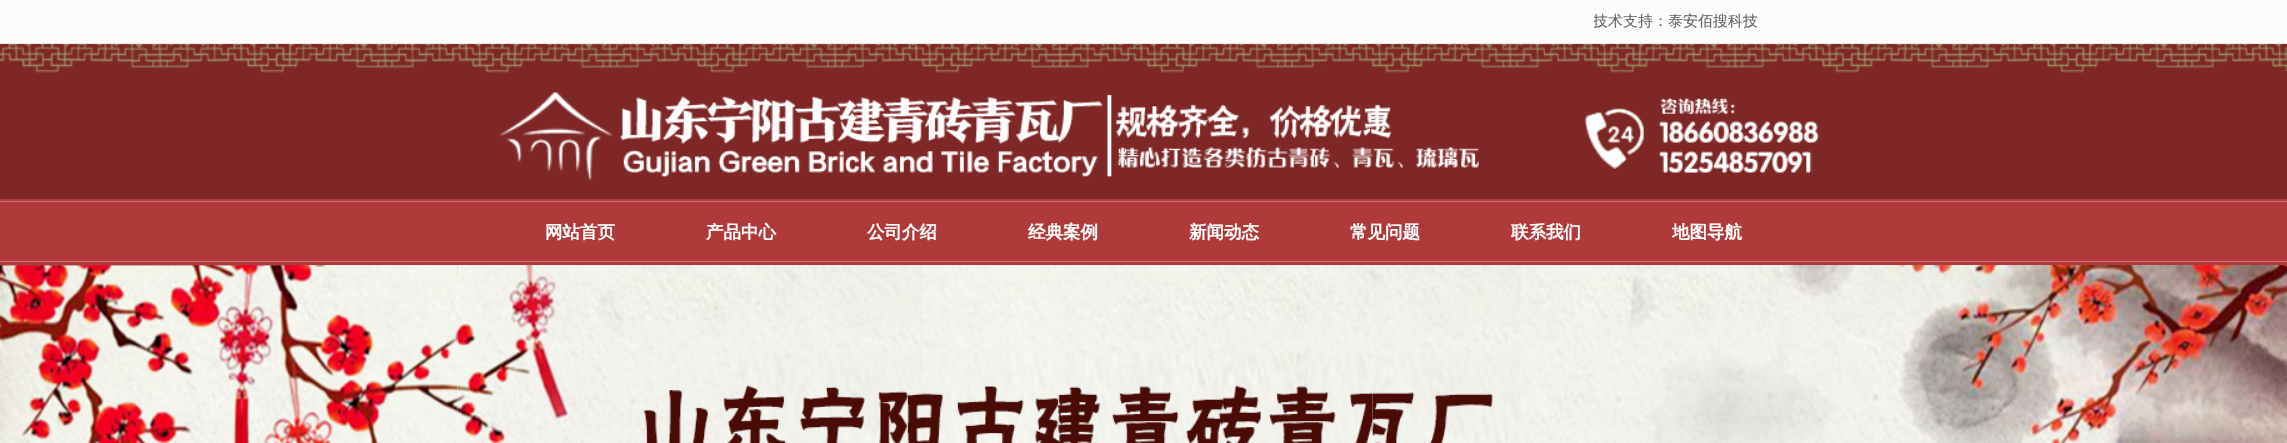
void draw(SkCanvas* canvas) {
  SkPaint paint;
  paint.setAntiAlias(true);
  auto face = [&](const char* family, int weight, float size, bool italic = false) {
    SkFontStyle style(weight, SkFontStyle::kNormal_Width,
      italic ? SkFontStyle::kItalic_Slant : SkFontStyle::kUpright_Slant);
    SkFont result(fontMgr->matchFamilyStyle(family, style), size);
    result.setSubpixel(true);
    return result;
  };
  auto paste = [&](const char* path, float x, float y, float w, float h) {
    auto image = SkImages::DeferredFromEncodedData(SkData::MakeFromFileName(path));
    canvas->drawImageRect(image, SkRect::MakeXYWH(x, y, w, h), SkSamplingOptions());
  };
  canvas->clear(0xffffffff);
  {
    const struct { float x, y, w, h; SkColor color; } items[] = {
      {0, 0, 2287, 43, 0xfffcfcfc},
      {0, 43, 2287, 1, 0xffe6e6e6},
      {0, 44, 2287, 155, 0xff7f2727},
    };
    for (auto [x, y, w, h, color] : items) {
      paint.setColor(color);
      canvas->drawRect(SkRect::MakeXYWH(x, y, w, h), paint);
    }
  }
  paste("img/1.png", 0, 43, 2287, 30);
  paste("img/2.png", 500, 92, 1319, 88);
  {
    const struct { float x, y, w, h; SkColor color; } items[] = {
      {0, 199, 2287, 66, 0xffb03939},
      {0, 201, 2287, 1, 0xffc87474},
      {0, 261, 2287, 1, 0xffc87474},
    };
    for (auto [x, y, w, h, color] : items) {
      paint.setColor(color);
      canvas->drawRect(SkRect::MakeXYWH(x, y, w, h), paint);
    }
  }
  paste("img/3.png", 457, 265, 916, 12);
  paste("img/4.png", 0, 265, 458, 178);
  paste("img/5.png", 457, 265, 458, 178);
  paste("img/6.png", 915, 265, 458, 178);
  paste("img/7.png", 1372, 265, 458, 178);
  paste("img/8.png", 1830, 265, 457, 178);
  paint.setColor(0x66b03939);
  canvas->drawRect(SkRect::MakeXYWH(0, 265, 294, 1), paint);
  canvas->save();
  canvas->clipRect(SkRect::MakeXYWH(1594, 0, 194, 43));
  auto f0 = face("WenQuanYi Zen Hei", 500, 15);
  paint.setColor(0xff666666);
  canvas->drawString("技术支持：泰安佰搜科技", 1593, 26, f0, paint);
  canvas->restore();
  auto f1 = face("WenQuanYi Zen Hei", 700, 17.5f);
  paint.setColor(0xffffffff);
  {
    const struct { const char* s; float x, y; } items[] = {
      {"网站首页", 545, 238},
      {"产品中心", 706, 238},
      {"公司介绍", 867, 238},
      {"经典案例", 1028, 238},
      {"新闻动态", 1189, 238},
      {"常见问题", 1350, 238},
      {"联系我们", 1511, 238},
      {"地图导航", 1672, 238},
    };
    for (auto [s, x, y] : items) {
      canvas->drawString(s, x, y, f1, paint);
    }
  }
}
